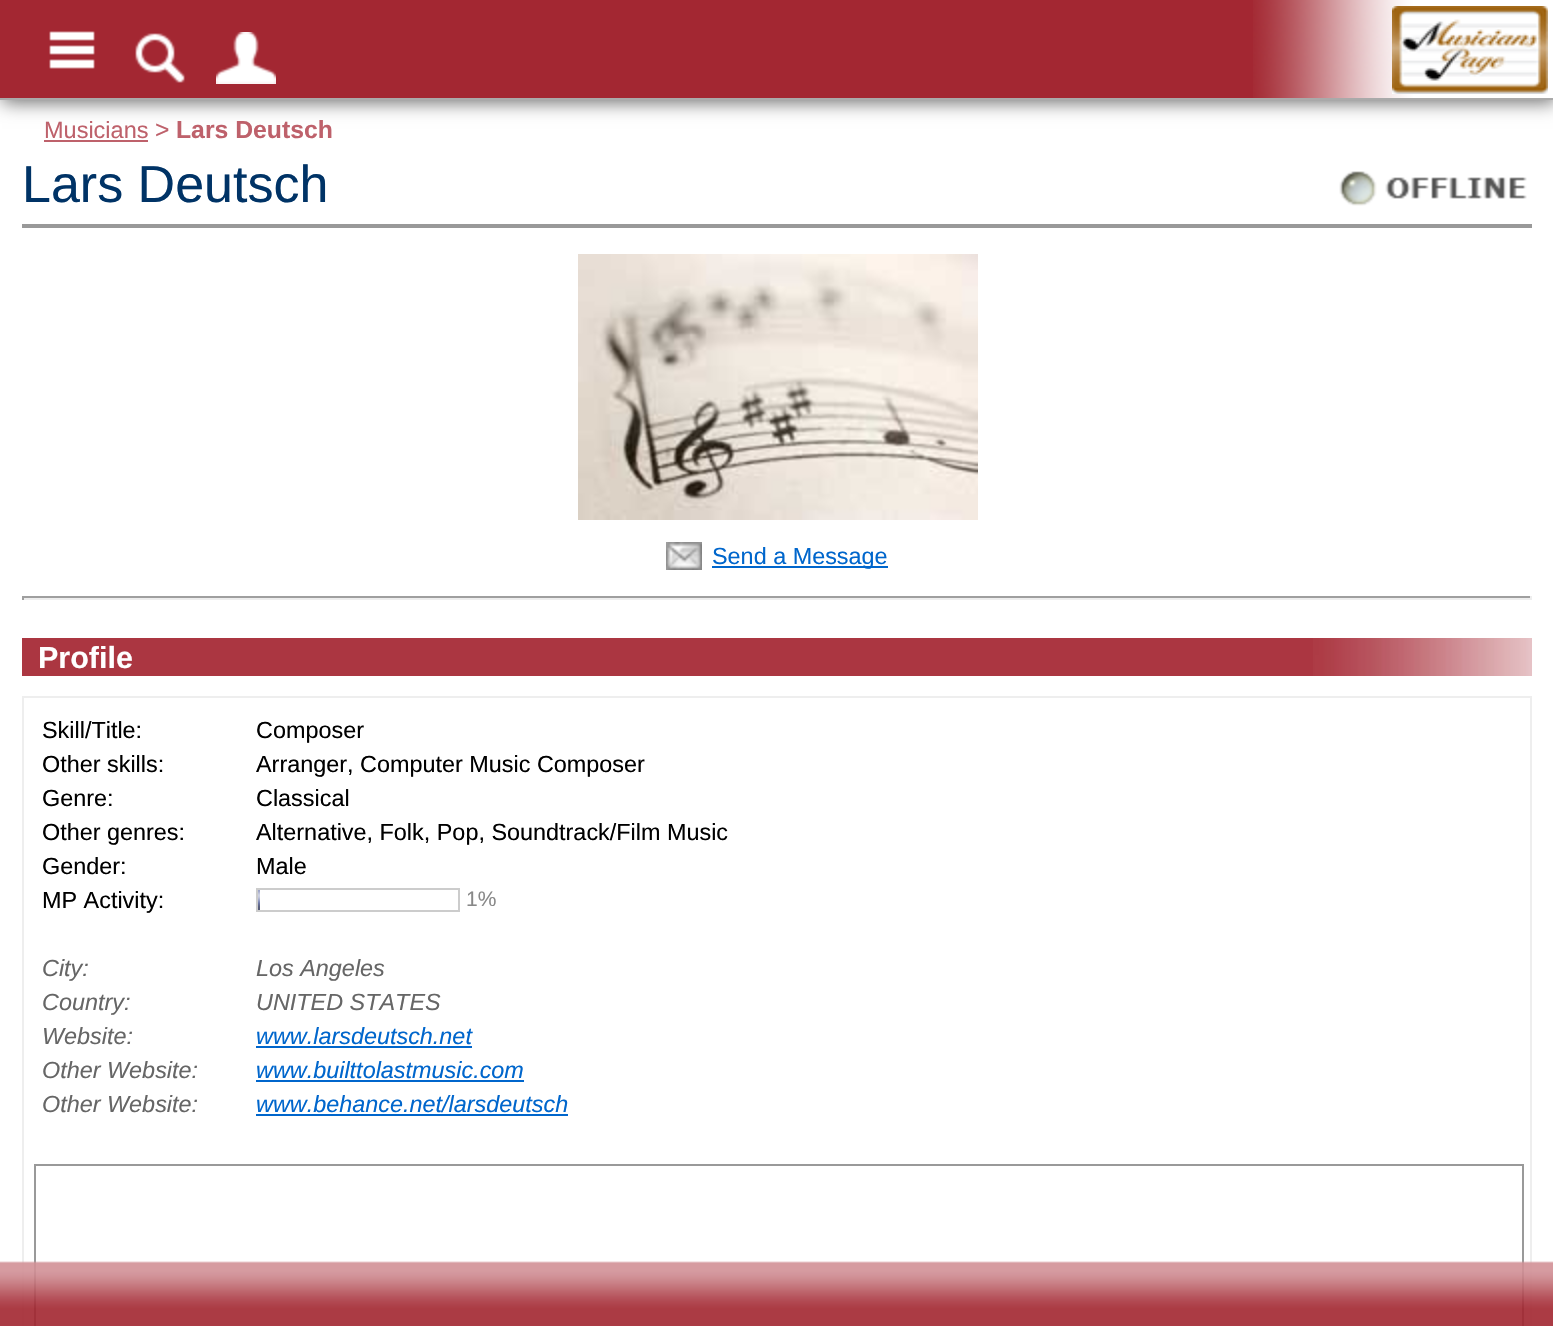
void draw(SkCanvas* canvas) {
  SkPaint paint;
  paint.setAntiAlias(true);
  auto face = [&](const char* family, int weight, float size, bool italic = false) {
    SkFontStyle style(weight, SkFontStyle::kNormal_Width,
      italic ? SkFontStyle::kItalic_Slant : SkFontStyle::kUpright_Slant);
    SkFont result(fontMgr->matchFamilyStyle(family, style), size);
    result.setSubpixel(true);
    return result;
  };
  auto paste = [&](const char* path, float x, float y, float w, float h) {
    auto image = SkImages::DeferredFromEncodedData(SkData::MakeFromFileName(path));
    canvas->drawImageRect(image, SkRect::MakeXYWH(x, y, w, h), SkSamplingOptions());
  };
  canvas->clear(0xffffffff);
  paint.setColor(0xff666666);
  paint.setMaskFilter(SkMaskFilter::MakeBlur(kNormal_SkBlurStyle, 9));
  canvas->drawRect(SkRect::MakeXYWH(2, 2, 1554, 100), paint);
  paint.setMaskFilter(nullptr);
  paint.setColor(0xffa32732);
  canvas->drawRect(SkRect::MakeXYWH(0, 0, 1253, 98), paint);
  paste("img/1.png", 1253, 0, 300, 98);
  paint.setColor(0xffaaaaaa);
  canvas->drawRect(SkRect::MakeXYWH(0, 98, 1553, 2), paint);
  paste("img/2.png", 49, 31, 46, 38);
  paste("img/3.png", 135, 33, 50, 50);
  paste("img/4.png", 216, 32, 60, 52);
  paste("img/5.png", 1392, 6, 156, 88);
  paint.setColor(0xffbe616b);
  canvas->drawRect(SkRect::MakeXYWH(44, 140, 104, 2), paint);
  paint.setColor(0xff999999);
  canvas->drawRect(SkRect::MakeXYWH(22, 224, 1510, 4), paint);
  paste("img/6.png", 1339, 171, 188, 35);
  paste("img/7.png", 578, 254, 400, 266);
  paste("img/8.png", 666, 542, 36, 28);
  {
    const struct { float x, y, w, h; SkColor color; } items[] = {
      {712, 566, 176, 2, 0xff0066cc},
      {22, 596, 1510, 2, 0xff9f9f9f},
      {1530, 596, 2, 4, 0xffeeeeee},
      {22, 598, 1510, 2, 0xffeeeeee},
      {22, 596, 2, 4, 0xff9f9f9f},
      {22, 638, 1291, 38, 0xffab3641},
    };
    for (auto [x, y, w, h, color] : items) {
      paint.setColor(color);
      canvas->drawRect(SkRect::MakeXYWH(x, y, w, h), paint);
    }
  }
  paste("img/9.png", 1313, 638, 219, 38);
  paint.setStroke(true);
  paint.setStrokeWidth(2);
  paint.setColor(0xffeeeeee);
  canvas->drawRect(SkRect::MakeXYWH(23, 697, 1508, 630), paint);
  paint.setColor(0xffcccccc);
  canvas->drawRect(SkRect::MakeXYWH(257, 889, 202, 22), paint);
  paste("img/10.png", 258, 890, 2, 20);
  paint.setStroke(false);
  {
    const struct { float x, y, w, h; SkColor color; } items[] = {
      {256, 1046, 216, 2, 0xff0066cc},
      {256, 1080, 268, 2, 0xff0066cc},
      {256, 1114, 312, 2, 0xff0066cc},
    };
    for (auto [x, y, w, h, color] : items) {
      paint.setColor(color);
      canvas->drawRect(SkRect::MakeXYWH(x, y, w, h), paint);
    }
  }
  paint.setStroke(true);
  paint.setColor(0xff999999);
  canvas->drawRect(SkRect::MakeXYWH(35, 1165, 1488, 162), paint);
  paste("img/11.png", 0, 1261, 1553, 65);
  auto f0 = face("Liberation Sans", 400, 23.5f);
  paint.setStroke(false);
  paint.setColor(0xffbe616b);
  canvas->drawString("Musicians", 44, 138, f0, paint);
  auto f1 = face("Liberation Sans", 400, 24.75f);
  canvas->drawString(">", 155, 138, f1, paint);
  auto f2 = face("Liberation Sans", 700, 24.75f);
  canvas->drawString("Lars Deutsch", 176, 138, f2, paint);
  auto f3 = face("Liberation Sans", 400, 52);
  paint.setColor(0xff003366);
  canvas->drawString("Lars Deutsch", 22, 202, f3, paint);
  auto f4 = face("Liberation Sans", 400, 23.4f);
  paint.setColor(0xff0066cc);
  canvas->drawString("Send a Message", 712, 564, f4, paint);
  auto f5 = face("Liberation Sans", 700, 30.5f);
  paint.setColor(0xffffffff);
  canvas->drawString("Profile", 38, 668, f5, paint);
  paint.setColor(0xff000000);
  {
    const struct { const char* s; float x, y; } items[] = {
      {"Skill/Title:", 42, 738},
      {"Composer", 256, 738},
      {"Other skills:", 42, 772},
      {"Arranger, Computer Music Composer", 256, 772},
      {"Genre:", 42, 806},
      {"Classical", 256, 806},
      {"Other genres:", 42, 840},
      {"Alternative, Folk, Pop, Soundtrack/Film Music", 256, 840},
      {"Gender:", 42, 874},
      {"Male", 256, 874},
      {"MP Activity:", 42, 908},
    };
    for (auto [s, x, y] : items) {
      canvas->drawString(s, x, y, f4, paint);
    }
  }
  auto f6 = face("Liberation Sans", 400, 21);
  paint.setColor(0xff888888);
  canvas->drawString("1%", 466, 906, f6, paint);
  auto f7 = face("Liberation Sans", 400, 23.4f, true);
  paint.setColor(0xff666666);
  {
    const struct { const char* s; float x, y; } items[] = {
      {"City:", 42, 976},
      {"Los Angeles", 256, 976},
      {"Country:", 42, 1010},
      {"UNITED STATES", 256, 1010},
      {"Website:", 42, 1044},
    };
    for (auto [s, x, y] : items) {
      canvas->drawString(s, x, y, f7, paint);
    }
  }
  paint.setColor(0xff0066cc);
  canvas->drawString("www.larsdeutsch.net", 256, 1044, f7, paint);
  paint.setColor(0xff666666);
  canvas->drawString("Other Website:", 42, 1078, f7, paint);
  paint.setColor(0xff0066cc);
  canvas->drawString("www.builttolastmusic.com", 256, 1078, f7, paint);
  paint.setColor(0xff666666);
  canvas->drawString("Other Website:", 42, 1112, f7, paint);
  paint.setColor(0xff0066cc);
  canvas->drawString("www.behance.net/larsdeutsch", 256, 1112, f7, paint);
}
